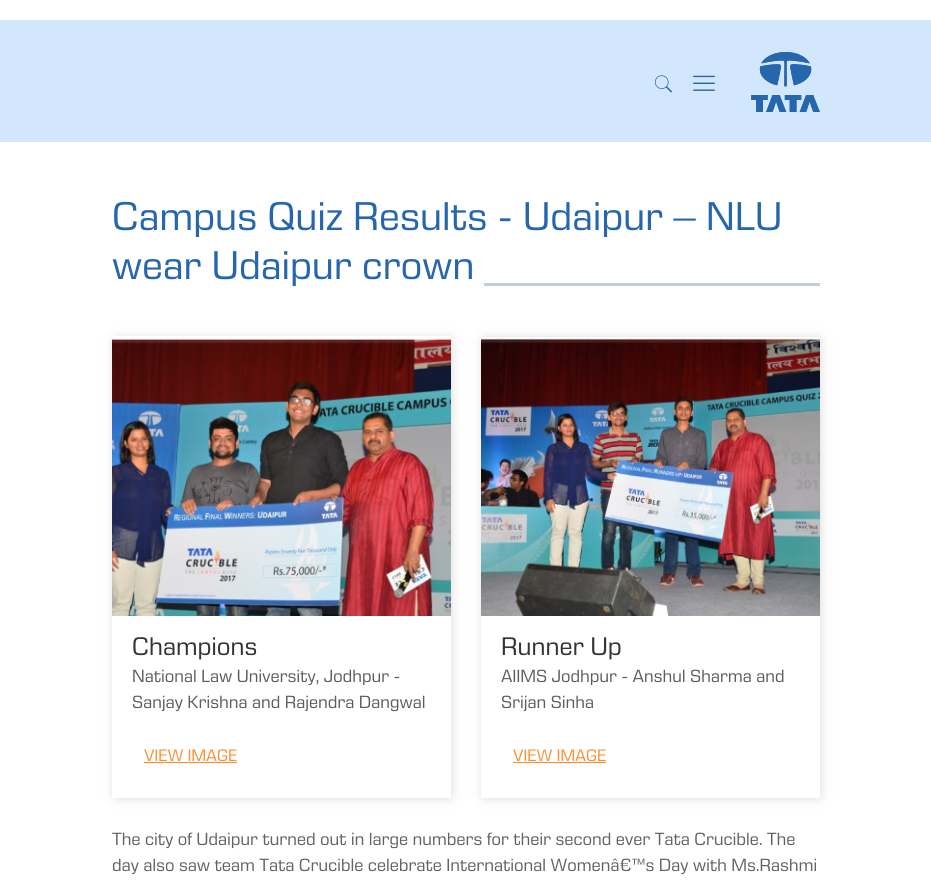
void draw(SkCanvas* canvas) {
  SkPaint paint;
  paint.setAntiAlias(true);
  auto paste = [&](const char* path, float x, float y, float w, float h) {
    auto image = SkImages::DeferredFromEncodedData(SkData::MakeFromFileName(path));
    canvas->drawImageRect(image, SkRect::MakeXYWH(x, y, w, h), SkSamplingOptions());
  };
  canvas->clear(0xffffffff);
  paint.setColor(0xffd3e7fc);
  canvas->drawRect(SkRect::MakeXYWH(0, 20, 931, 122), paint);
  paste("img/1.png", 654, 75, 19, 18);
  paste("img/2.png", 751, 52, 69, 60);
  paste("img/3.png", 693, 75, 22, 16);
  paste("img/4.png", 114, 201, 666, 36);
  paste("img/5.png", 112, 251, 360, 35);
  paint.setColor(0xffc1cce2);
  canvas->drawRect(SkRect::MakeXYWH(484, 283, 336, 3), paint);
  paint.setColor(0x21000000);
  paint.setMaskFilter(SkMaskFilter::MakeBlur(kNormal_SkBlurStyle, 4.5f));
  canvas->drawRect(SkRect::MakeXYWH(113, 337, 339, 462), paint);
  paint.setMaskFilter(nullptr);
  paste("img/6.png", 112, 336, 339, 280);
  paint.setColor(0xffffffff);
  canvas->drawRect(SkRect::MakeXYWH(112, 616, 339, 182), paint);
  paste("img/7.png", 133, 637, 124, 23);
  paste("img/8.png", 133, 669, 267, 17);
  paste("img/9.png", 133, 695, 292, 17);
  paste("img/10.png", 144, 749, 93, 13);
  paint.setColor(0xffff8c29);
  canvas->drawRect(SkRect::MakeXYWH(144, 762, 93, 1), paint);
  paint.setColor(0x21000000);
  paint.setMaskFilter(SkMaskFilter::MakeBlur(kNormal_SkBlurStyle, 4.5f));
  canvas->drawRect(SkRect::MakeXYWH(482, 337, 339, 462), paint);
  paint.setMaskFilter(nullptr);
  paste("img/11.png", 481, 337, 339, 279);
  paint.setColor(0xffffffff);
  canvas->drawRect(SkRect::MakeXYWH(481, 616, 339, 182), paint);
  paste("img/12.png", 502, 637, 119, 23);
  paste("img/13.png", 501, 669, 283, 17);
  paste("img/14.png", 502, 695, 91, 17);
  paste("img/10.png", 513, 749, 93, 13);
  paint.setColor(0xffff8c29);
  canvas->drawRect(SkRect::MakeXYWH(513, 762, 93, 1), paint);
  paste("img/15.png", 112, 832, 683, 17);
  paste("img/16.png", 112, 858, 704, 17);
}
